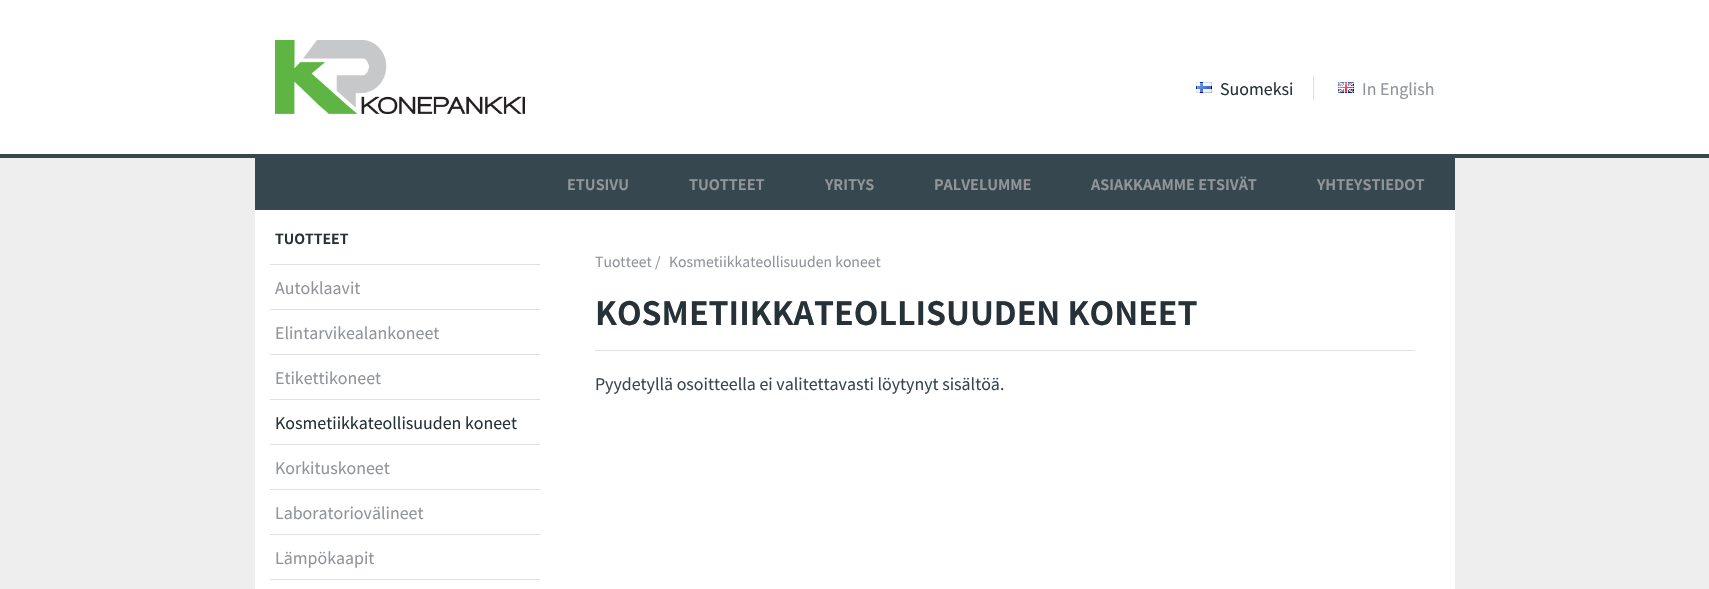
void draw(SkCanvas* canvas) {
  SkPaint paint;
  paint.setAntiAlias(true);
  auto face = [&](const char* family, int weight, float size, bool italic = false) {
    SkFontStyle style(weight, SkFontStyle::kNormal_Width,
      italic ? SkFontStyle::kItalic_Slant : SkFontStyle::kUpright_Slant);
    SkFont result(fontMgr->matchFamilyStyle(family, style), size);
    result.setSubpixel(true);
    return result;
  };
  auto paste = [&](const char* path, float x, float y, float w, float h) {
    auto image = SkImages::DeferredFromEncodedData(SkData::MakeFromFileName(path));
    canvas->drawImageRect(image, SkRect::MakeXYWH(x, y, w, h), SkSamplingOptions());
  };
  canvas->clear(0xffffffff);
  paint.setColor(0xff37474f);
  canvas->drawRect(SkRect::MakeXYWH(0, 154, 1709, 4), paint);
  paste("img/1.png", 275, 40, 250, 74);
  paste("img/2.png", 1196, 82, 16, 11);
  paint.setColor(0xffe0e0e0);
  canvas->drawRect(SkRect::MakeXYWH(1313, 76, 1, 24), paint);
  paste("img/3.png", 1338, 82, 16, 11);
  {
    const struct { float x, y, w, h; SkColor color; } items[] = {
      {0, 158, 1709, 431, 0xffeeeeef},
      {255, 158, 1200, 52, 0xff37474f},
      {255, 210, 1200, 379, 0xffffffff},
      {270, 264, 270, 1, 0xffe0e0e0},
      {270, 309, 270, 1, 0xffe0e0e0},
      {270, 354, 270, 1, 0xffe0e0e0},
      {270, 399, 270, 1, 0xffe0e0e0},
      {270, 444, 270, 1, 0xffe0e0e0},
      {270, 489, 270, 1, 0xffe0e0e0},
      {270, 534, 270, 1, 0xffe0e0e0},
      {270, 579, 270, 1, 0xffe0e0e0},
      {595, 350, 820, 1, 0xffe0e0e0},
    };
    for (auto [x, y, w, h, color] : items) {
      paint.setColor(color);
      canvas->drawRect(SkRect::MakeXYWH(x, y, w, h), paint);
    }
  }
  auto f0 = face("Noto Sans KR", 400, 16);
  paint.setColor(0xff263238);
  canvas->drawString("Suomeksi", 1220, 95, f0, paint);
  paint.setColor(0xff919599);
  canvas->drawString("In English", 1362, 95, f0, paint);
  auto f1 = face("Noto Sans KR", 700, 14.4f);
  {
    const struct { const char* s; float x, y; } items[] = {
      {"ETUSIVU", 567, 190},
      {"TUOTTEET", 689, 190},
      {"YRITYS", 825, 190},
      {"PALVELUMME", 934, 190},
      {"ASIAKKAAMME ETSIVÄT", 1091, 190},
      {"YHTEYSTIEDOT", 1317, 190},
    };
    for (auto [s, x, y] : items) {
      canvas->drawString(s, x, y, f1, paint);
    }
  }
  auto f2 = face("Noto Sans KR", 700, 14);
  paint.setColor(0xff263238);
  canvas->drawString("TUOTTEET", 275, 244, f2, paint);
  paint.setColor(0xff919599);
  {
    const struct { const char* s; float x, y; } items[] = {
      {"Autoklaavit", 275, 294},
      {"Elintarvikealankoneet", 275, 339},
      {"Etikettikoneet", 275, 384},
    };
    for (auto [s, x, y] : items) {
      canvas->drawString(s, x, y, f0, paint);
    }
  }
  paint.setColor(0xff263238);
  canvas->drawString("Kosmetiikkateollisuuden koneet", 275, 429, f0, paint);
  paint.setColor(0xff919599);
  {
    const struct { const char* s; float x, y; } items[] = {
      {"Korkituskoneet", 275, 474},
      {"Laboratoriovälineet", 275, 519},
      {"Lämpökaapit", 275, 564},
    };
    for (auto [s, x, y] : items) {
      canvas->drawString(s, x, y, f0, paint);
    }
  }
  auto f3 = face("Noto Sans KR", 400, 14);
  {
    const struct { const char* s; float x, y; } items[] = {
      {"Tuotteet", 595, 267},
      {"/", 655, 267},
      {"Kosmetiikkateollisuuden koneet", 669, 267},
    };
    for (auto [s, x, y] : items) {
      canvas->drawString(s, x, y, f3, paint);
    }
  }
  auto f4 = face("Noto Sans KR", 700, 32);
  paint.setColor(0xff263238);
  canvas->drawString("KOSMETIIKKATEOLLISUUDEN KONEET", 595, 325, f4, paint);
  paint.setColor(0xff37474f);
  canvas->drawString("Pyydetyllä osoitteella ei valitettavasti löytynyt sisältöä.", 595, 390, f0, paint);
}
